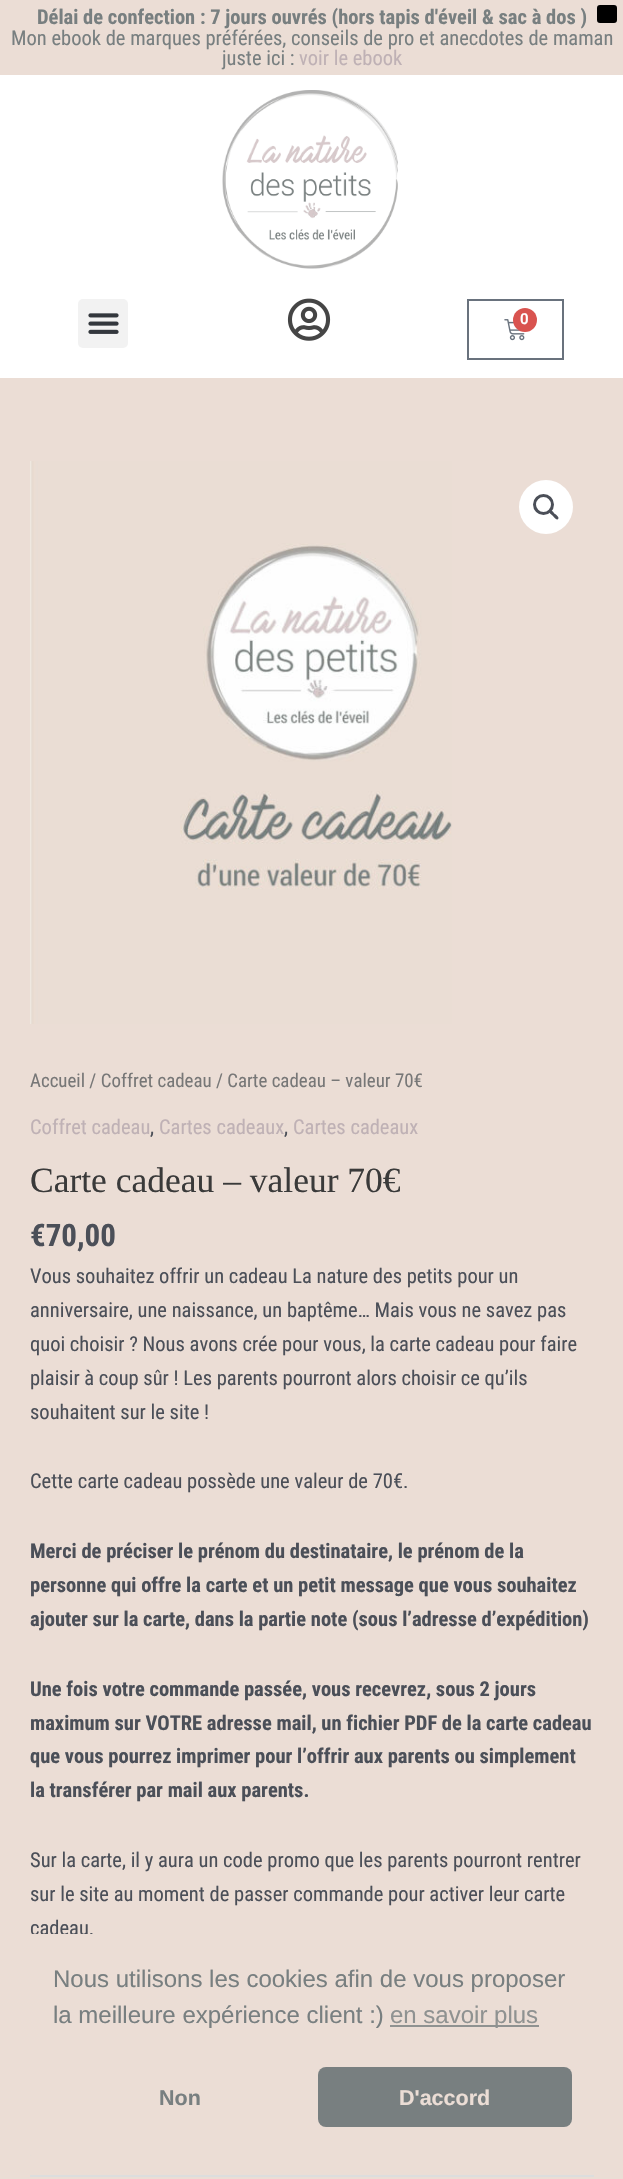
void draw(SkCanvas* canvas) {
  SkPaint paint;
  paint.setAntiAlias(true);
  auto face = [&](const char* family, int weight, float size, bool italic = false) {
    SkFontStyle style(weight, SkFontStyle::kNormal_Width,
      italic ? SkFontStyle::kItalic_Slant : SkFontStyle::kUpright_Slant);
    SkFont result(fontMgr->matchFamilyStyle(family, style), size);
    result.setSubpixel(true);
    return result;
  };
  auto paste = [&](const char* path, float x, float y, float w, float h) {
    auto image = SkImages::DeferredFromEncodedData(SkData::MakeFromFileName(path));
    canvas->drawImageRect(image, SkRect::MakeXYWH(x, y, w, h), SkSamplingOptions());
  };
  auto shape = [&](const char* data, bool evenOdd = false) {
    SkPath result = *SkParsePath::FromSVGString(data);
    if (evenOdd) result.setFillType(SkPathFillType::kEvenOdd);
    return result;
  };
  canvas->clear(0xffebddd5);
  paint.setColor(0xff000000);
  canvas->drawRoundRect(SkRect::MakeXYWH(598, 6, 18, 16), 2, 2, paint);
  paint.setStroke(true);
  paint.setStrokeWidth(2);
  canvas->drawRoundRect(SkRect::MakeXYWH(598, 6, 18, 16), 2, 2, paint);
  paint.setStroke(false);
  paint.setColor(0xffffffff);
  canvas->drawRect(SkRect::MakeXYWH(0, 75, 623, 303), paint);
  paste("img/1.png", 222, 90, 176, 179);
  paint.setColor(0xfff2f2f2);
  canvas->drawRoundRect(SkRect::MakeXYWH(78, 299, 50, 49), 5, 5, paint);
  paste("img/2.png", 88, 313, 31, 21);
  paste("img/3.png", 287, 298, 44, 43);
  paint.setStroke(true);
  paint.setColor(0xff69727d);
  canvas->drawRect(SkRect::MakeXYWH(468, 300, 95, 59), paint);
  paste("img/4.png", 504, 319, 21, 22);
  paint.setStroke(false);
  paint.setColor(0xffd9534f);
  canvas->drawCircle(525, 320, 12, paint);
  paste("img/5.png", 30, 461, 422, 563);
  paint.setColor(0xffffffff);
  canvas->drawCircle(546, 507, 27, paint);
  paint.setStroke(true);
  paint.setStrokeWidth(3);
  paint.setColor(0xff4b4f58);
  canvas->drawCircle(543.5f, 504.5f, 9, paint);
  paint.setStroke(false);
  canvas->drawPath(shape("M549.5 510.5C551.5 509 554 513 555 514C556 514.5 560 517.5 558 519C556.5 521 554 517 553 516C552 515 548 512.5 549.5 510.5Z"), paint);
  paint.setStroke(true);
  paint.setStrokeWidth(2);
  paint.setColor(0xffdddddd);
  canvas->drawRect(SkRect::MakeXYWH(31, 2104, 73, 51), paint);
  paint.setStroke(false);
  canvas->drawRect(SkRect::MakeXYWH(30, 2175, 564, 2), paint);
  auto f0 = face("Roboto Condensed", 700, 20.5f);
  paint.setColor(0xff787f80);
  canvas->drawString("Délai de confection : 7 jours ouvrés (hors tapis d'éveil & sac à dos )", 37, 24, f0, paint);
  auto f1 = face("Roboto Condensed", 400, 20.5f);
  canvas->drawString("Mon ebook de marques préférées, conseils de pro et anecdotes de maman", 11, 45, f1, paint);
  canvas->drawString("juste ici :", 222, 65, f1, paint);
  paint.setColor(0xffbfb1b5);
  canvas->drawString("voir le ebook", 299, 65, f1, paint);
  auto f2 = face("Roboto", 600, 15);
  paint.setColor(0xffffffff);
  canvas->drawString("0", 520, 324, f2, paint);
  auto f3 = face("Roboto Condensed", 400, 18.9f);
  paint.setColor(0xff777777);
  canvas->drawString("Accueil / Coffret cadeau / Carte cadeau – valeur 70€", 30, 1087, f3, paint);
  paint.setColor(0xffbfb1b5);
  canvas->drawString("Coffret cadeau", 30, 1134, f1, paint);
  paint.setColor(0xff4b4f58);
  canvas->drawString(",", 150, 1134, f1, paint);
  paint.setColor(0xffbfb1b5);
  canvas->drawString("Cartes cadeaux", 159, 1134, f1, paint);
  paint.setColor(0xff4b4f58);
  canvas->drawString(",", 284, 1134, f1, paint);
  paint.setColor(0xffbfb1b5);
  canvas->drawString("Cartes cadeaux", 293, 1134, f1, paint);
  auto f4 = face("Liberation Serif", 400, 35.5f);
  paint.setColor(0xff3a3a3a);
  canvas->drawString("Carte cadeau – valeur 70€", 30, 1192, f4, paint);
  auto f5 = face("Roboto Condensed", 700, 31);
  paint.setColor(0xff4b4f58);
  canvas->drawString("€70,00", 30, 1246, f5, paint);
  {
    const struct { const char* s; float x, y; } items[] = {
      {"Vous souhaitez offrir un cadeau La nature des petits pour un", 30, 1283},
      {"anniversaire, une naissance, un baptême… Mais vous ne savez pas", 30, 1317},
      {"quoi choisir ? Nous avons crée pour vous, la carte cadeau pour faire", 30, 1351},
      {"plaisir à coup sûr ! Les parents pourront alors choisir ce qu’ils", 30, 1385},
      {"souhaitent sur le site !", 30, 1419},
      {"Cette carte cadeau possède une valeur de 70€.", 30, 1488},
    };
    for (auto [s, x, y] : items) {
      canvas->drawString(s, x, y, f1, paint);
    }
  }
  {
    const struct { const char* s; float x, y; } items[] = {
      {"Merci de préciser le prénom du destinataire, le prénom de la", 30, 1558},
      {"personne qui offre la carte et un petit message que vous souhaitez", 30, 1592},
      {"ajouter sur la carte, dans la partie note (sous l’adresse d’expédition)", 30, 1626},
      {"Une fois votre commande passée, vous recevrez, sous 2 jours", 30, 1696},
      {"maximum sur VOTRE adresse mail, un fichier PDF de la carte cadeau", 30, 1730},
      {"que vous pourrez imprimer pour l’offrir aux parents ou simplement", 30, 1763},
      {"la transférer par mail aux parents.", 30, 1797},
    };
    for (auto [s, x, y] : items) {
      canvas->drawString(s, x, y, f0, paint);
    }
  }
  {
    const struct { const char* s; float x, y; } items[] = {
      {"Sur la carte, il y aura un code promo que les parents pourront rentrer", 30, 1867},
      {"sur le site au moment de passer commande pour activer leur carte", 30, 1901},
      {"cadeau.", 30, 1935},
    };
    for (auto [s, x, y] : items) {
      canvas->drawString(s, x, y, f1, paint);
    }
  }
  paint.setColor(0xffebddd5);
  canvas->drawRoundRect(SkRect::MakeXYWH(24, 1934, 576, 222), 8, 8, paint);
  auto f6 = face("Liberation Sans", 400, 24);
  paint.setColor(0xff787f80);
  canvas->drawString("Nous utilisons les cookies afin de vous proposer", 53, 1987, f6, paint);
  canvas->drawString("la meilleure expérience client :)", 53, 2023, f6, paint);
  paint.setColor(0xff8f9291);
  canvas->drawRect(SkRect::MakeXYWH(390, 2025, 149, 2), paint);
  canvas->drawString("en savoir plus", 390, 2023, f6, paint);
  auto f7 = face("Liberation Sans", 700, 21.5f);
  paint.setColor(0xff787f80);
  canvas->drawString("Non", 159, 2105, f7, paint);
  canvas->drawRoundRect(SkRect::MakeXYWH(318, 2067, 254, 60), 8, 8, paint);
  paint.setColor(0xffebddd5);
  canvas->drawString("D'accord", 399, 2105, f7, paint);
}
